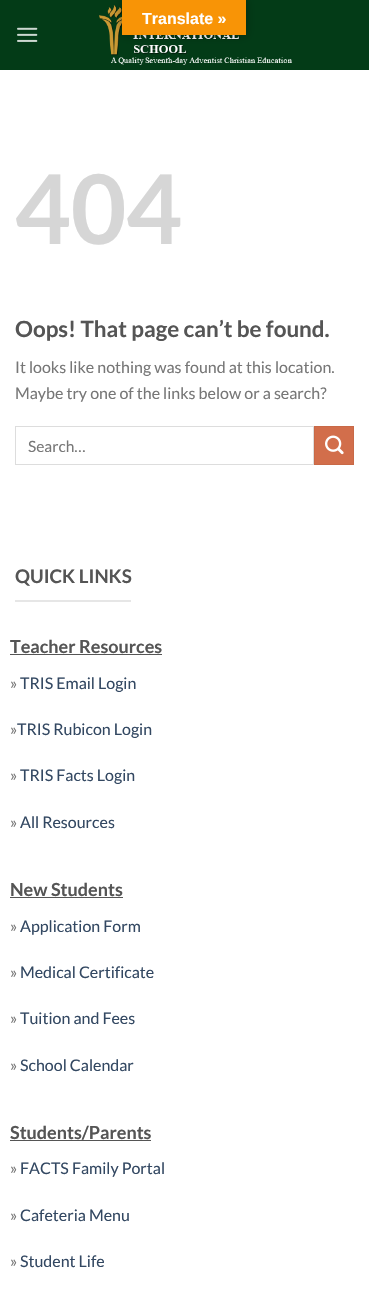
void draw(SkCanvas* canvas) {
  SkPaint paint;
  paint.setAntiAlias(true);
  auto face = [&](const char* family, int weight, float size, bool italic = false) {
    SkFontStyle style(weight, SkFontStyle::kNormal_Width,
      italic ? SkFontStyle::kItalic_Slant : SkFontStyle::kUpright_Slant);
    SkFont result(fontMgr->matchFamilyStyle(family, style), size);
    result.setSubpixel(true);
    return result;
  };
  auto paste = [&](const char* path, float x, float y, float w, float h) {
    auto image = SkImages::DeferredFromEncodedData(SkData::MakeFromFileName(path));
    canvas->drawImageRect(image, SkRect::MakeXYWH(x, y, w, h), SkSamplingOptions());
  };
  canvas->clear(0xffffffff);
  paint.setColor(0xff033b17);
  canvas->drawRect(SkRect::MakeXYWH(0, 0, 369, 70), paint);
  paste("img/2.png", 99, 5, 193, 60);
  paint.setColor(0x4d000000);
  paint.setMaskFilter(SkMaskFilter::MakeBlur(kNormal_SkBlurStyle, 4.5f));
  canvas->drawRect(SkRect::MakeXYWH(122, 0, 124, 35), paint);
  paint.setMaskFilter(nullptr);
  paint.setColor(0xfff89406);
  canvas->drawRect(SkRect::MakeXYWH(122, 0, 124, 35), paint);
  paste("img/1.png", 17, 27, 21, 15);
  paint.setStroke(true);
  paint.setStrokeWidth(1);
  paint.setColor(0xffdddddd);
  canvas->drawRect(SkRect::MakeXYWH(15.5f, 426.5f, 298, 38), paint);
  paint.setStroke(false);
  paint.setColor(0xffd26e4b);
  canvas->drawRect(SkRect::MakeXYWH(314.5f, 426.5f, 39, 38), paint);
  paint.setStroke(true);
  paint.setColor(0xffc86947);
  canvas->drawRect(SkRect::MakeXYWH(314.5f, 426.5f, 39, 38), paint);
  paste("img/3.png", 325, 435, 19, 20);
  paint.setStroke(false);
  {
    const struct { float x, y, w, h; SkColor color; } items[] = {
      {15, 600, 116, 2, 0xffe6e6e6},
      {10, 654, 152, 1, 0xff555555},
      {10, 897, 113, 1, 0xff555555},
      {10, 1140, 141, 1, 0xff555555},
    };
    for (auto [x, y, w, h, color] : items) {
      paint.setColor(color);
      canvas->drawRect(SkRect::MakeXYWH(x, y, w, h), paint);
    }
  }
  auto f0 = face("Liberation Sans", 700, 16);
  paint.setColor(0xffffffff);
  canvas->drawString("Translate »", 142, 24, f0, paint);
  auto f1 = face("Lato", 700, 96);
  paint.setColor(0xffd6d6d6);
  canvas->drawString("404", 15, 244, f1, paint);
  auto f2 = face("Lato", 700, 22.4f);
  paint.setColor(0xff555555);
  canvas->drawString("Oops! That page can’t be found.", 15, 337, f2, paint);
  auto f3 = face("Lato", 400, 16);
  paint.setColor(0xff777777);
  canvas->drawString("It looks like nothing was found at this location.", 15, 373, f3, paint);
  canvas->drawString("Maybe try one of the links below or a search?", 15, 399, f3, paint);
  auto f4 = face("Lato", 400, 15.5f);
  canvas->drawString("Search…", 28, 452, f4, paint);
  auto f5 = face("Lato", 700, 18.75f);
  paint.setColor(0xff555555);
  canvas->drawString("QUICK LINKS", 15, 583, f5, paint);
  auto f6 = face("Lato", 700, 18);
  canvas->drawString("Teacher Resources", 10, 653, f6, paint);
  paint.setColor(0xff777777);
  canvas->drawString("»", 10, 689, f3, paint);
  paint.setColor(0xff334862);
  canvas->drawString("TRIS Email Login", 20, 689, f3, paint);
  paint.setColor(0xff777777);
  canvas->drawString("»", 10, 735, f3, paint);
  paint.setColor(0xff334862);
  canvas->drawString("TRIS Rubicon Login", 17, 735, f3, paint);
  paint.setColor(0xff777777);
  canvas->drawString("»", 10, 781, f3, paint);
  paint.setColor(0xff334862);
  canvas->drawString("TRIS Facts Login", 20, 781, f3, paint);
  paint.setColor(0xff777777);
  canvas->drawString("»", 10, 828, f3, paint);
  paint.setColor(0xff334862);
  canvas->drawString("All Resources", 20, 828, f3, paint);
  paint.setColor(0xff555555);
  canvas->drawString("New Students", 10, 896, f6, paint);
  paint.setColor(0xff777777);
  canvas->drawString("»", 10, 932, f3, paint);
  paint.setColor(0xff334862);
  canvas->drawString("Application Form", 20, 932, f3, paint);
  paint.setColor(0xff777777);
  canvas->drawString("»", 10, 978, f3, paint);
  paint.setColor(0xff334862);
  canvas->drawString("Medical Certificate", 20, 978, f3, paint);
  paint.setColor(0xff777777);
  canvas->drawString("»", 10, 1024, f3, paint);
  paint.setColor(0xff334862);
  canvas->drawString("Tuition and Fees", 20, 1024, f3, paint);
  paint.setColor(0xff777777);
  canvas->drawString("»", 10, 1071, f3, paint);
  paint.setColor(0xff334862);
  canvas->drawString("School Calendar", 20, 1071, f3, paint);
  paint.setColor(0xff555555);
  canvas->drawString("Students/Parents", 10, 1139, f6, paint);
  paint.setColor(0xff777777);
  canvas->drawString("»", 10, 1174, f3, paint);
  paint.setColor(0xff334862);
  canvas->drawString("FACTS Family Portal", 20, 1174, f3, paint);
  paint.setColor(0xff777777);
  canvas->drawString("»", 10, 1221, f3, paint);
  paint.setColor(0xff334862);
  canvas->drawString("Cafeteria Menu", 20, 1221, f3, paint);
  paint.setColor(0xff777777);
  canvas->drawString("»", 10, 1267, f3, paint);
  paint.setColor(0xff334862);
  canvas->drawString("Student Life", 20, 1267, f3, paint);
}
